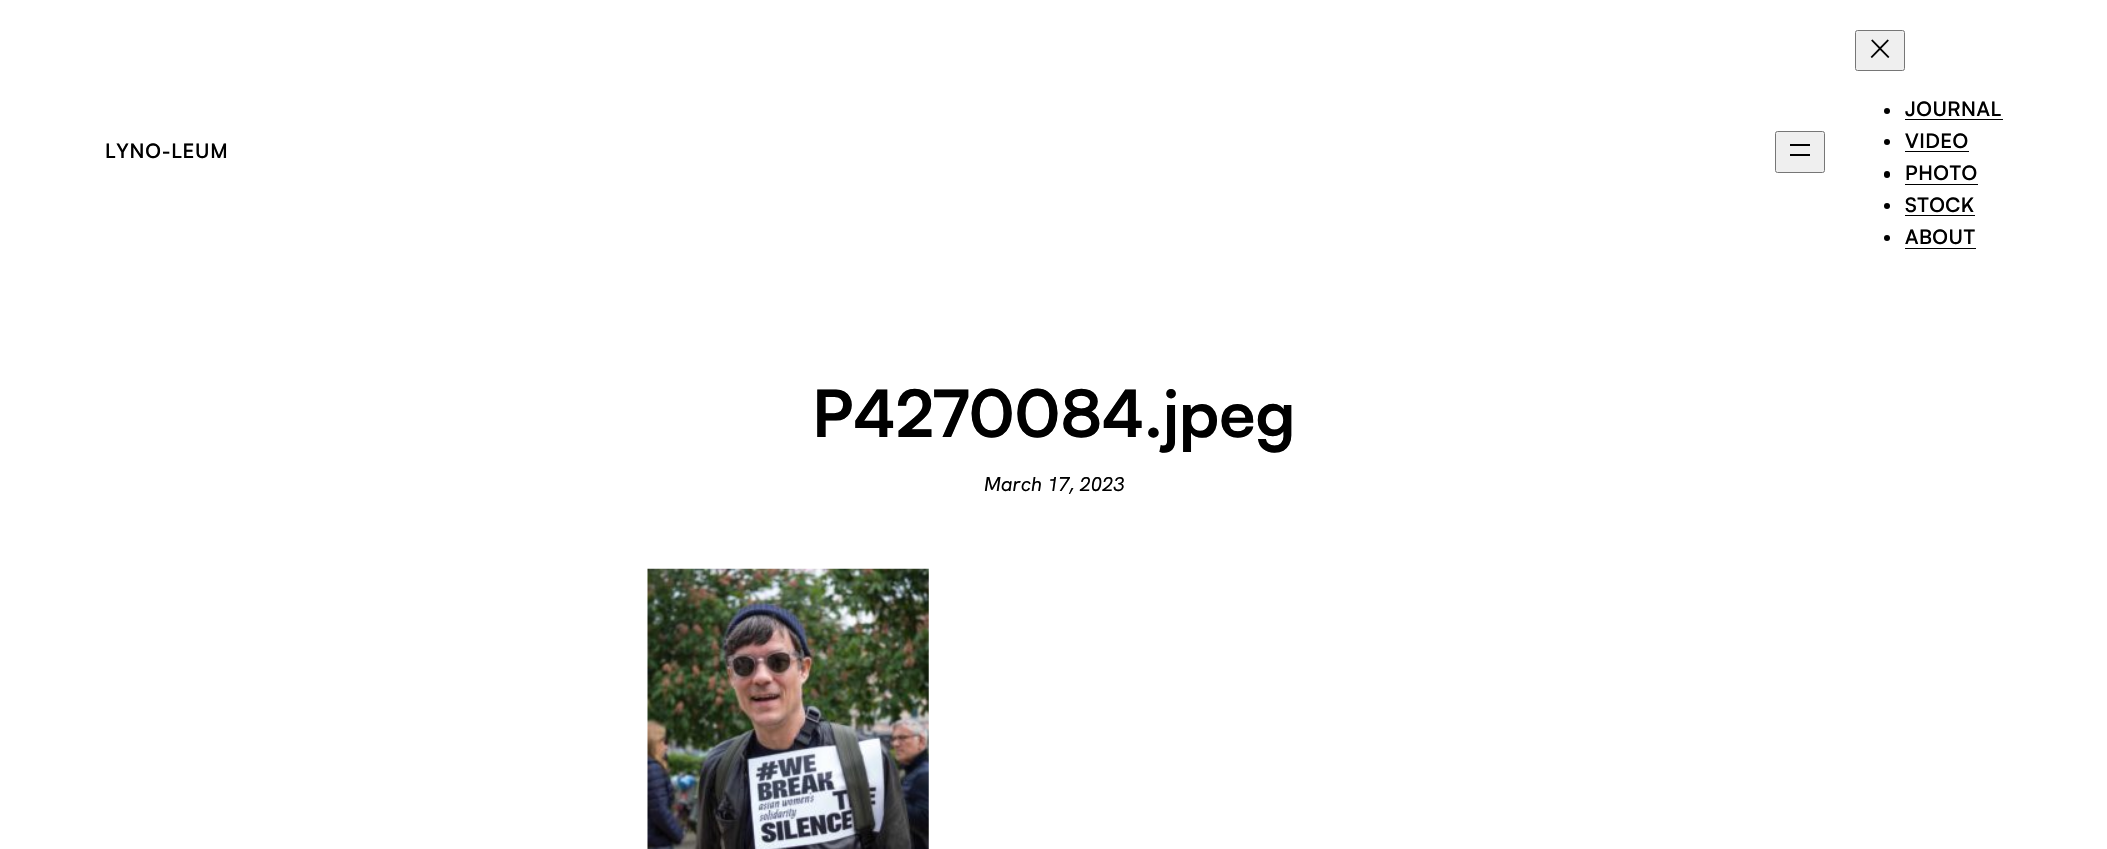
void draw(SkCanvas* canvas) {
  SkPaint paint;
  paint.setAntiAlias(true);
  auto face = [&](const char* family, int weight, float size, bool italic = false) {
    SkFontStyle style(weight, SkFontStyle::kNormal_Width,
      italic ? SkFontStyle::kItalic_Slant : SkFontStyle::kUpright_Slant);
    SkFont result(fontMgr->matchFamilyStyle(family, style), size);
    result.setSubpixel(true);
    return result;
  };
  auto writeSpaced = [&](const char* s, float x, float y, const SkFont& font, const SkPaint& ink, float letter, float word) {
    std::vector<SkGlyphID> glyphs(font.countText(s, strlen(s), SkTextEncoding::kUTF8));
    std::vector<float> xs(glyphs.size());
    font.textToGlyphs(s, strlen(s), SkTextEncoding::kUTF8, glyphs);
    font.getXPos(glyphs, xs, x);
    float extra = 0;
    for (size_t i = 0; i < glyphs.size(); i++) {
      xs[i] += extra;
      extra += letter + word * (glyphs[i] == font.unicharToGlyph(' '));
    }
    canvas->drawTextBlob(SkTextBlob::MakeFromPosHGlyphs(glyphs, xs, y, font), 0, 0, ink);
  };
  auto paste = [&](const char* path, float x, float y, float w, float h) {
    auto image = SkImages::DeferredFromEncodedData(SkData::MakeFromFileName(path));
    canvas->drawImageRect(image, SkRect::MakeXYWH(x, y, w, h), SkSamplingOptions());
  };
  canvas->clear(0xffffffff);
  paint.setColor(0xffefefef);
  canvas->drawRoundRect(SkRect::MakeXYWH(1775.5f, 131.5f, 49, 41), 2, 2, paint);
  paint.setStroke(true);
  paint.setStrokeWidth(1);
  paint.setColor(0xff767676);
  canvas->drawRoundRect(SkRect::MakeXYWH(1775.5f, 131.5f, 49, 41), 2, 2, paint);
  paint.setStroke(false);
  paint.setColor(0xff000000);
  canvas->drawRect(SkRect::MakeXYWH(1790, 144, 20, 2), paint);
  canvas->drawRect(SkRect::MakeXYWH(1790, 154, 20, 2), paint);
  paint.setColor(0xffefefef);
  canvas->drawRoundRect(SkRect::MakeXYWH(1855.5f, 30.5f, 49, 40), 2, 2, paint);
  paint.setStroke(true);
  paint.setColor(0xff767676);
  canvas->drawRoundRect(SkRect::MakeXYWH(1855.5f, 30.5f, 49, 40), 2, 2, paint);
  paste("img/1.png", 1870, 39, 20, 19);
  paint.setStroke(false);
  paint.setColor(0xff000000);
  canvas->drawCircle(1887, 111, 3, paint);
  canvas->drawRect(SkRect::MakeXYWH(1905, 119, 98, 1), paint);
  canvas->drawCircle(1887, 142, 3, paint);
  canvas->drawRect(SkRect::MakeXYWH(1905, 151, 64, 1), paint);
  canvas->drawRoundRect(SkRect::MakeXYWH(1884, 171, 6, 7), 3, 3, paint);
  canvas->drawRect(SkRect::MakeXYWH(1905, 184, 73, 1), paint);
  canvas->drawCircle(1887, 206, 3, paint);
  canvas->drawRect(SkRect::MakeXYWH(1905, 215, 70, 1), paint);
  canvas->drawCircle(1887, 238, 3, paint);
  canvas->drawRect(SkRect::MakeXYWH(1905, 248, 71, 1), paint);
  paste("img/2.png", 647, 568, 282, 281);
  auto f0 = face("Satoshi", 600, 20);
  writeSpaced("LYNO-LEUM", 105, 158, f0, paint, 0.75f, 0);
  {
    const struct { const char* s; float x, y; } items[] = {
      {"JOURNAL", 1905, 116},
      {"VIDEO", 1905, 148},
      {"PHOTO", 1905, 180},
      {"STOCK", 1905, 212},
      {"ABOUT", 1905, 244},
    };
    for (auto [s, x, y] : items) {
      writeSpaced(s, x, y, f0, paint, 0.5f, 0);
    }
  }
  auto f1 = face("Satoshi", 700, 65);
  canvas->drawString("P4270084.jpeg", 812, 437, f1, paint);
  auto f2 = face("Hanken Grotesk", 400, 20, true);
  canvas->drawString("March 17, 2023", 984, 491, f2, paint);
}
